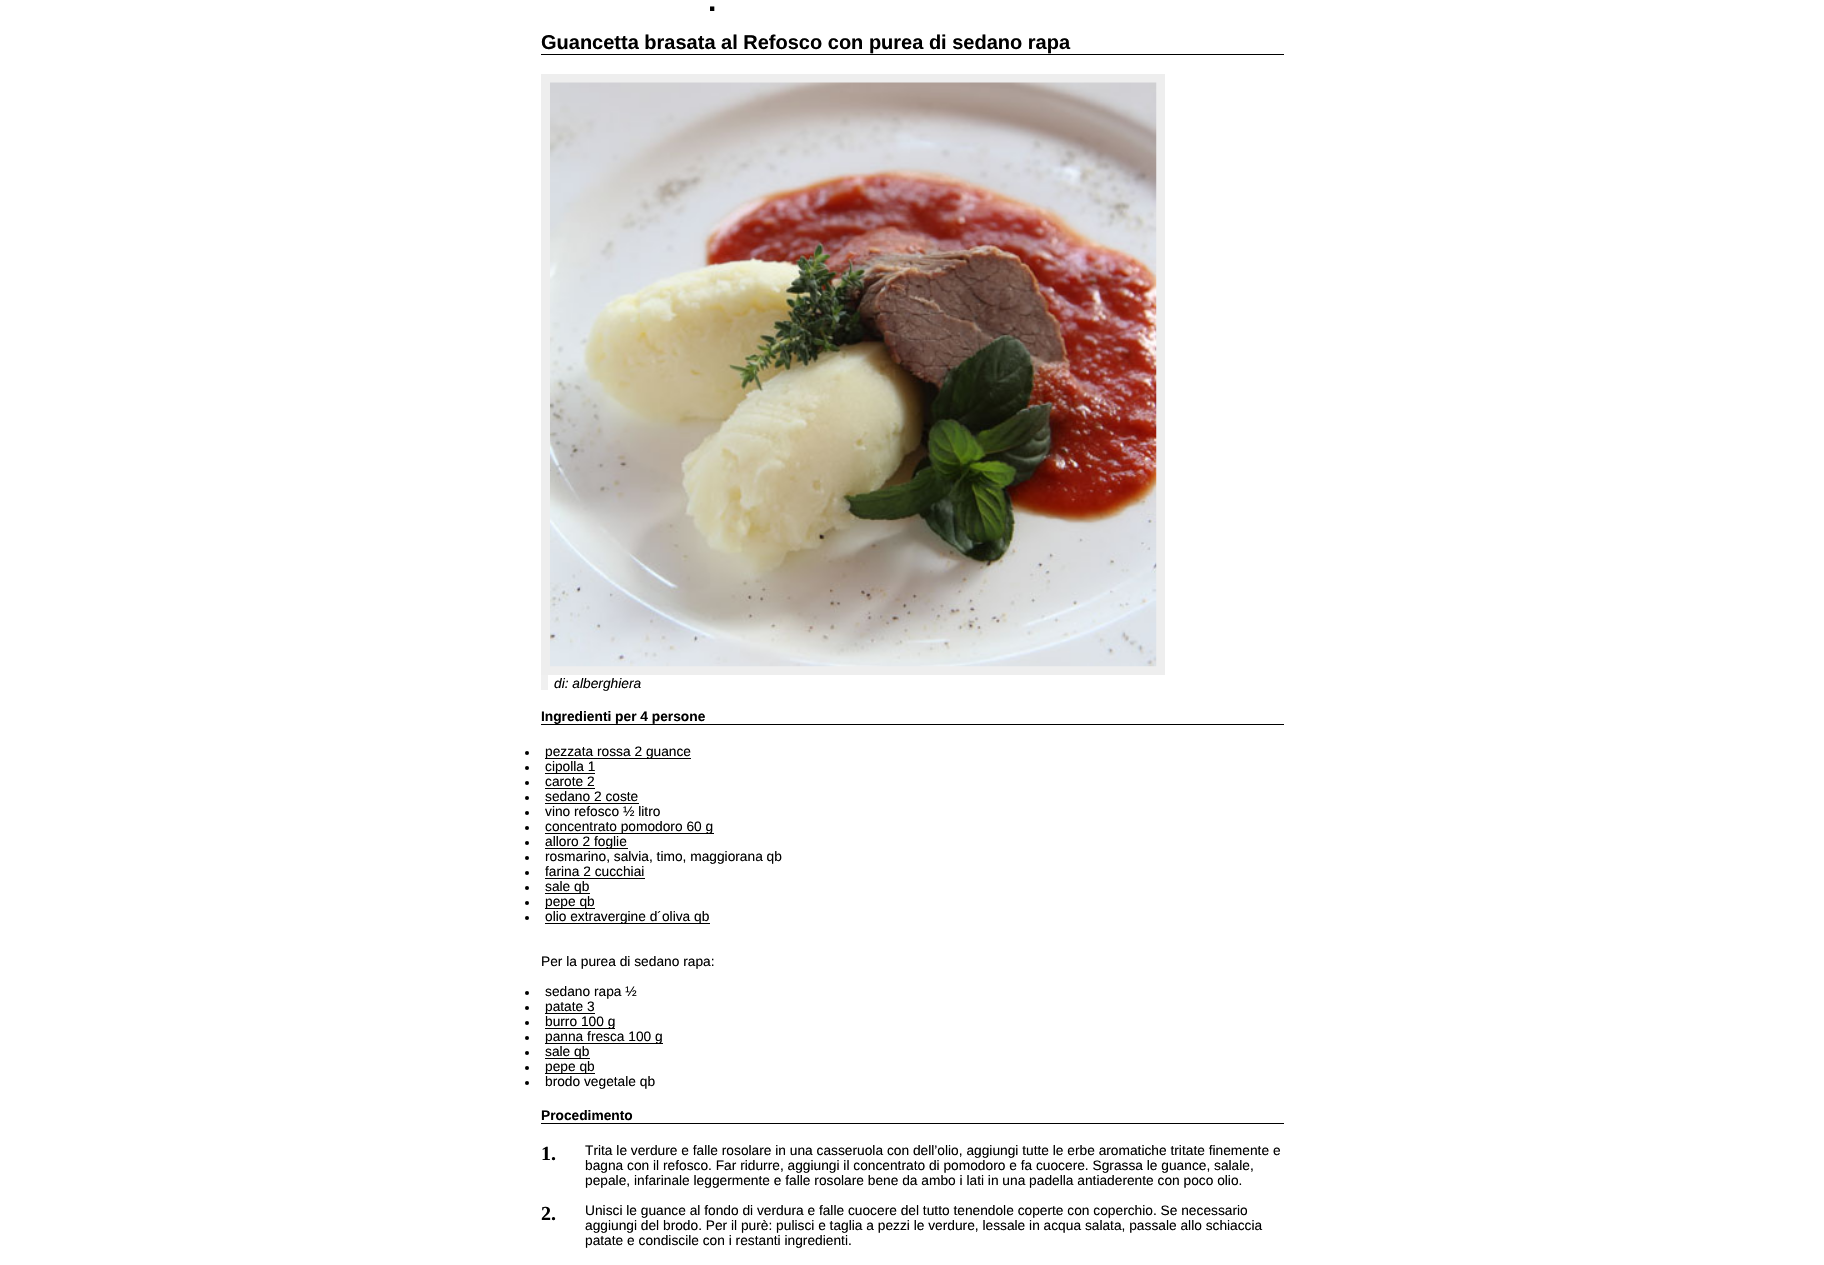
void draw(SkCanvas* canvas) {
  SkPaint paint;
  paint.setAntiAlias(true);
  auto face = [&](const char* family, int weight, float size, bool italic = false) {
    SkFontStyle style(weight, SkFontStyle::kNormal_Width,
      italic ? SkFontStyle::kItalic_Slant : SkFontStyle::kUpright_Slant);
    SkFont result(fontMgr->matchFamilyStyle(family, style), size);
    result.setSubpixel(true);
    return result;
  };
  auto paste = [&](const char* path, float x, float y, float w, float h) {
    auto image = SkImages::DeferredFromEncodedData(SkData::MakeFromFileName(path));
    canvas->drawImageRect(image, SkRect::MakeXYWH(x, y, w, h), SkSamplingOptions());
  };
  canvas->clear(0xffffffff);
  paint.setColor(0xff000000);
  canvas->drawRect(SkRect::MakeXYWH(541, 54, 743, 1), paint);
  paint.setColor(0xffeeeeee);
  canvas->drawRect(SkRect::MakeXYWH(541, 74, 624, 601), paint);
  paste("img/1.png", 550, 82, 607, 585);
  paint.setColor(0xfff0f0f0);
  canvas->drawRect(SkRect::MakeXYWH(541, 675, 7, 15), paint);
  paint.setColor(0xff000000);
  canvas->drawRect(SkRect::MakeXYWH(541, 724, 743, 1), paint);
  canvas->drawCircle(527, 753, 2, paint);
  canvas->drawRect(SkRect::MakeXYWH(545, 758, 146, 1), paint);
  canvas->drawCircle(527, 768, 2, paint);
  canvas->drawRect(SkRect::MakeXYWH(545, 773, 50, 1), paint);
  canvas->drawCircle(527, 783, 2, paint);
  canvas->drawRect(SkRect::MakeXYWH(545, 788, 50, 1), paint);
  canvas->drawCircle(527, 798, 2, paint);
  canvas->drawRect(SkRect::MakeXYWH(545, 803, 94, 1), paint);
  canvas->drawCircle(527, 813, 2, paint);
  canvas->drawCircle(527, 828, 2, paint);
  canvas->drawRect(SkRect::MakeXYWH(545, 833, 169, 1), paint);
  canvas->drawCircle(527, 843, 2, paint);
  canvas->drawRect(SkRect::MakeXYWH(545, 848, 83, 1), paint);
  canvas->drawCircle(527, 858, 2, paint);
  canvas->drawCircle(527, 873, 2, paint);
  canvas->drawRect(SkRect::MakeXYWH(545, 878, 100, 1), paint);
  canvas->drawCircle(527, 888, 2, paint);
  canvas->drawRect(SkRect::MakeXYWH(545, 893, 45, 1), paint);
  canvas->drawCircle(527, 903, 2, paint);
  canvas->drawRect(SkRect::MakeXYWH(545, 908, 50, 1), paint);
  canvas->drawCircle(527, 918, 2, paint);
  canvas->drawRect(SkRect::MakeXYWH(545, 923, 165, 1), paint);
  canvas->drawCircle(527, 993, 2, paint);
  canvas->drawCircle(527, 1008, 2, paint);
  canvas->drawRect(SkRect::MakeXYWH(545, 1013, 50, 1), paint);
  canvas->drawCircle(527, 1023, 2, paint);
  canvas->drawRect(SkRect::MakeXYWH(545, 1028, 70, 1), paint);
  canvas->drawCircle(527, 1038, 2, paint);
  canvas->drawRect(SkRect::MakeXYWH(545, 1043, 118, 1), paint);
  canvas->drawCircle(527, 1053, 2, paint);
  canvas->drawRect(SkRect::MakeXYWH(545, 1058, 45, 1), paint);
  canvas->drawCircle(527, 1068, 2, paint);
  canvas->drawRect(SkRect::MakeXYWH(545, 1073, 50, 1), paint);
  canvas->drawCircle(527, 1083, 2, paint);
  canvas->drawRect(SkRect::MakeXYWH(541, 1123, 743, 1), paint);
  auto f0 = face("Liberation Sans", 700, 30);
  canvas->drawString(".", 708, 11, f0, paint);
  auto f1 = face("Liberation Sans", 700, 20);
  canvas->drawString("Guancetta brasata al Refosco con purea di sedano rapa", 541, 49, f1, paint);
  auto f2 = face("Liberation Sans", 400, 13.75f, true);
  canvas->drawString("di: alberghiera", 554, 688, f2, paint);
  auto f3 = face("Liberation Sans", 700, 13.75f);
  canvas->drawString("Ingredienti per 4 persone", 541, 721, f3, paint);
  auto f4 = face("Liberation Sans", 400, 13.75f);
  {
    const struct { const char* s; float x, y; } items[] = {
      {"pezzata rossa 2 guance", 545, 756},
      {"cipolla 1", 545, 771},
      {"carote 2", 545, 786},
      {"sedano 2 coste", 545, 801},
      {"vino refosco ½ litro", 545, 816},
      {"concentrato pomodoro 60 g", 545, 831},
      {"alloro 2 foglie", 545, 846},
      {"rosmarino, salvia, timo, maggiorana qb", 545, 861},
      {"farina 2 cucchiai", 545, 876},
      {"sale qb", 545, 891},
      {"pepe qb", 545, 906},
      {"olio extravergine d´oliva qb", 545, 921},
      {"Per la purea di sedano rapa:", 541, 966},
      {"sedano rapa ½", 545, 996},
      {"patate 3", 545, 1011},
      {"burro 100 g", 545, 1026},
      {"panna fresca 100 g", 545, 1041},
      {"sale qb", 545, 1056},
      {"pepe qb", 545, 1071},
      {"brodo vegetale qb", 545, 1086},
    };
    for (auto [s, x, y] : items) {
      canvas->drawString(s, x, y, f4, paint);
    }
  }
  canvas->drawString("Procedimento", 541, 1120, f3, paint);
  auto f5 = face("Liberation Serif", 700, 20);
  canvas->drawString("1.", 541, 1160, f5, paint);
  {
    const struct { const char* s; float x, y; } items[] = {
      {"Trita le verdure e falle rosolare in una casseruola con dell’olio, aggiungi tutte le erbe aromatiche tritate finemente e", 585, 1155},
      {"bagna con il refosco. Far ridurre, aggiungi il concentrato di pomodoro e fa cuocere. Sgrassa le guance, salale,", 585, 1170},
      {"pepale, infarinale leggermente e falle rosolare bene da ambo i lati in una padella antiaderente con poco olio.", 585, 1185},
    };
    for (auto [s, x, y] : items) {
      canvas->drawString(s, x, y, f4, paint);
    }
  }
  canvas->drawString("2.", 541, 1220, f5, paint);
  {
    const struct { const char* s; float x, y; } items[] = {
      {"Unisci le guance al fondo di verdura e falle cuocere del tutto tenendole coperte con coperchio. Se necessario", 585, 1215},
      {"aggiungi del brodo. Per il purè: pulisci e taglia a pezzi le verdure, lessale in acqua salata, passale allo schiaccia", 585, 1230},
      {"patate e condiscile con i restanti ingredienti.", 585, 1245},
    };
    for (auto [s, x, y] : items) {
      canvas->drawString(s, x, y, f4, paint);
    }
  }
}
